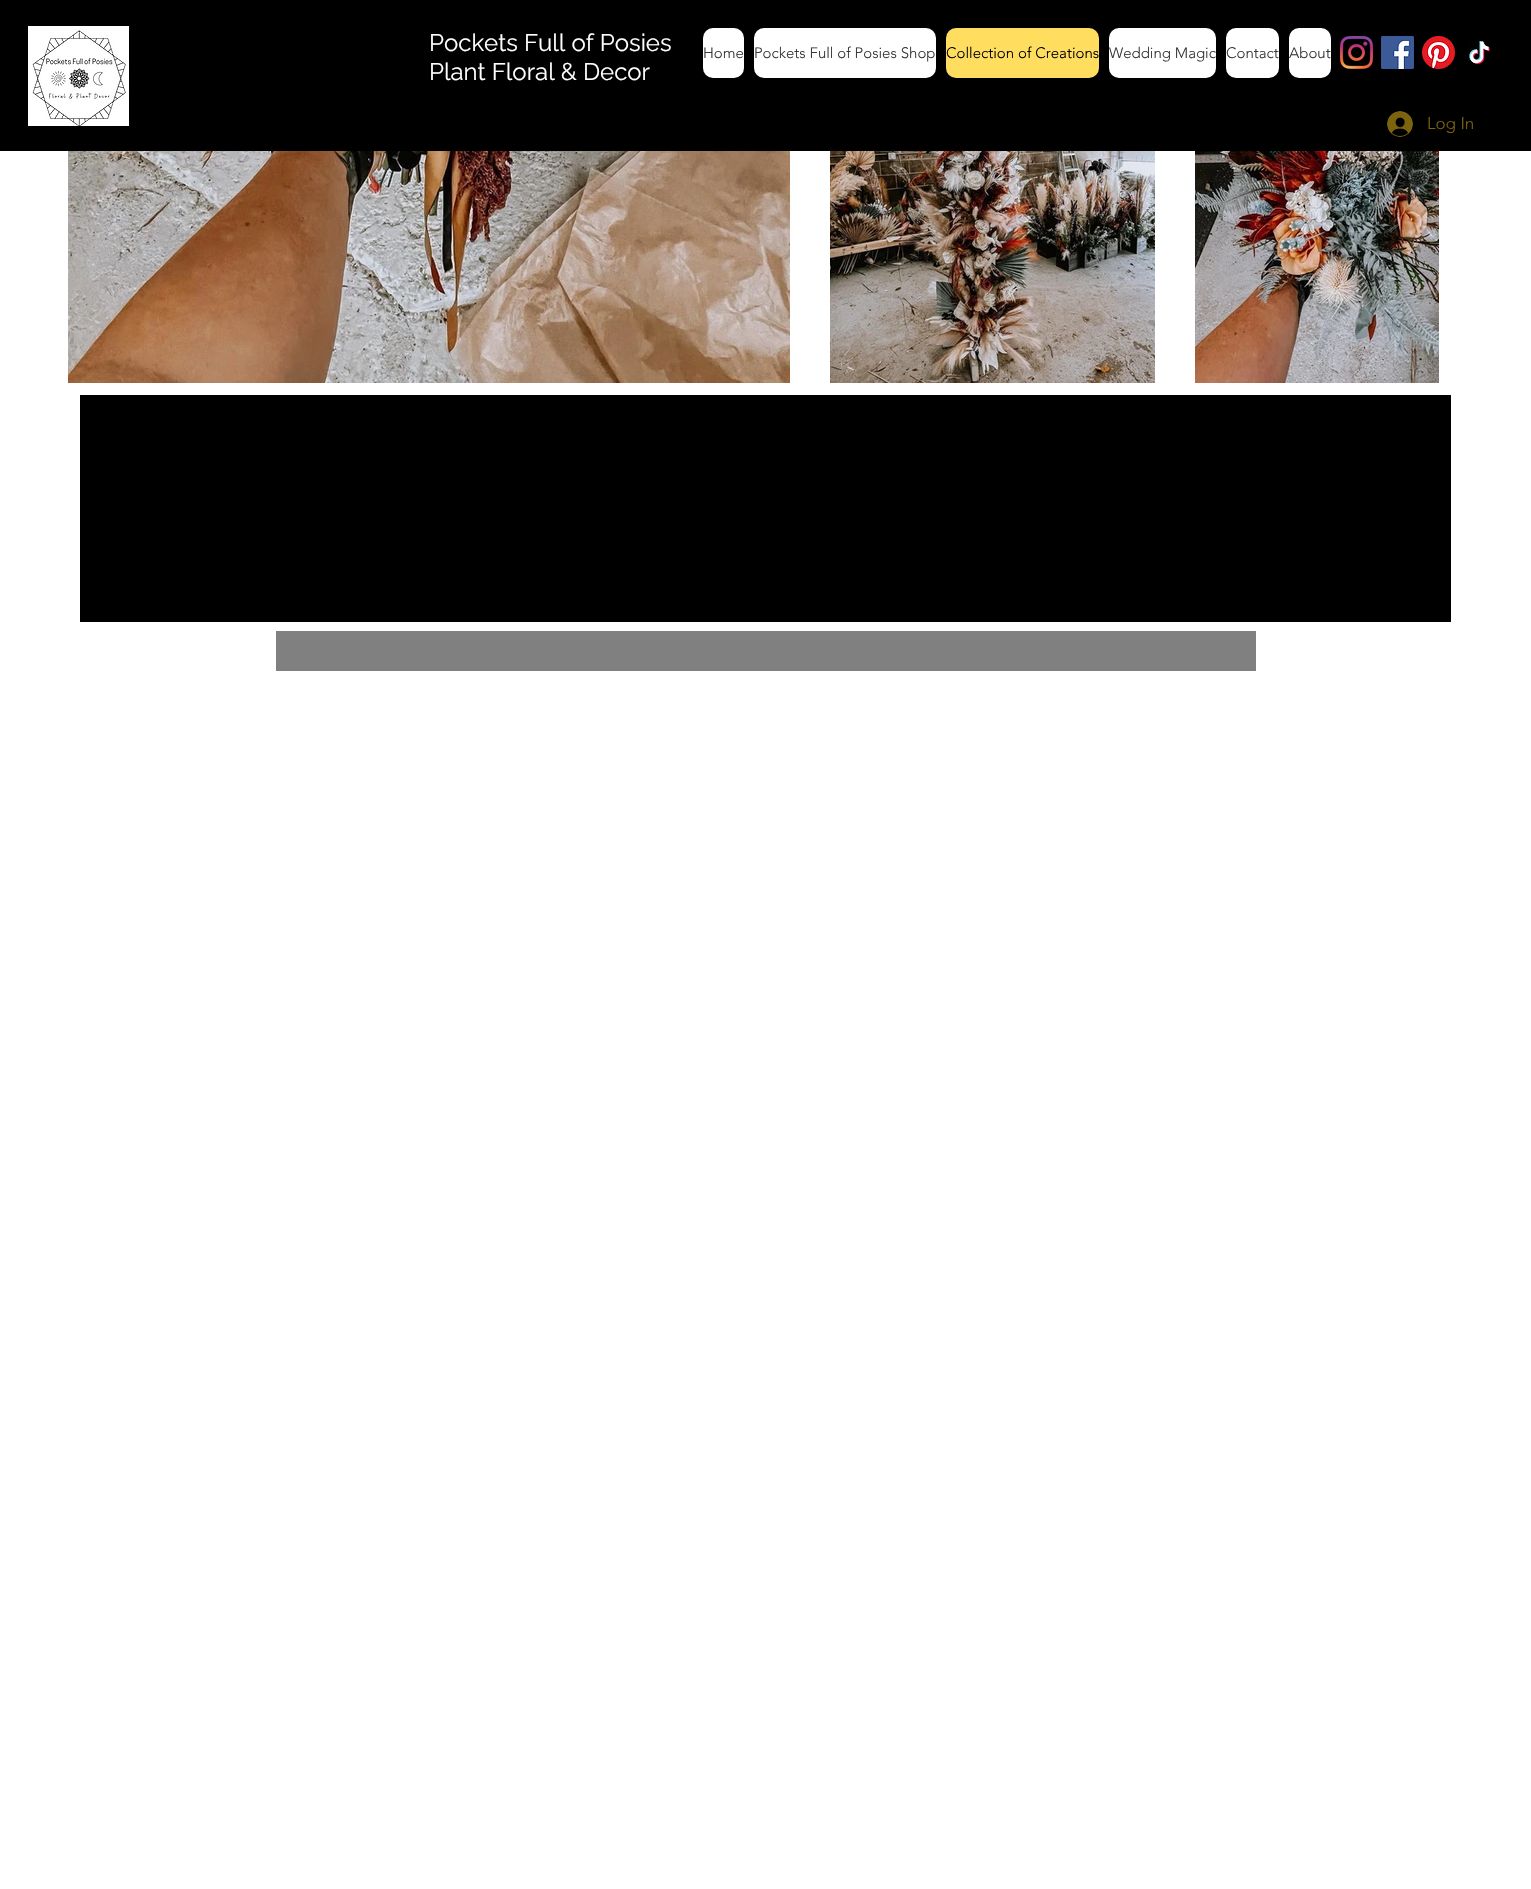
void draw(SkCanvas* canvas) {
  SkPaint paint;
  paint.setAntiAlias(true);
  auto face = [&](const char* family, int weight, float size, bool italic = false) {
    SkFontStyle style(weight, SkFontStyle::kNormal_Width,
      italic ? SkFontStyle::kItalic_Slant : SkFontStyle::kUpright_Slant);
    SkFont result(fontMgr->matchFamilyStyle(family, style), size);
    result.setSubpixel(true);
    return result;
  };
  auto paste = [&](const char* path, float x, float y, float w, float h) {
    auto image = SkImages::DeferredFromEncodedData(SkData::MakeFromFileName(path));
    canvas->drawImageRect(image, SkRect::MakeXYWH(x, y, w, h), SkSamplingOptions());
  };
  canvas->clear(0xffffffff);
  paint.setColor(0xff000000);
  canvas->drawRect(SkRect::MakeXYWH(0, 0, 1531, 151), paint);
  paste("img/1.png", 28, 26, 101, 100);
  paint.setColor(0xffffffff);
  canvas->drawRoundRect(SkRect::MakeXYWH(703, 28, 41, 50), 10, 10, paint);
  canvas->drawRoundRect(SkRect::MakeXYWH(754, 28, 182, 50), 10, 10, paint);
  paint.setColor(0xffffde5f);
  canvas->drawRoundRect(SkRect::MakeXYWH(946, 28, 153, 50), 10, 10, paint);
  paint.setColor(0xffffffff);
  canvas->drawRoundRect(SkRect::MakeXYWH(1109, 28, 107, 50), 10, 10, paint);
  canvas->drawRoundRect(SkRect::MakeXYWH(1226, 28, 53, 50), 10, 10, paint);
  canvas->drawRoundRect(SkRect::MakeXYWH(1289, 28, 42, 50), 10, 10, paint);
  paste("img/2.png", 1340, 36, 33, 33);
  paste("img/3.png", 1381, 36, 33, 33);
  paste("img/4.png", 1422, 36, 33, 33);
  paste("img/5.png", 1469, 41, 21, 24);
  paste("img/6.png", 1387, 111, 26, 26);
  paste("img/7.png", 68, 151, 722, 232);
  paste("img/8.png", 830, 151, 325, 232);
  paste("img/9.png", 1195, 151, 244, 232);
  paint.setColor(0xff000000);
  canvas->drawRect(SkRect::MakeXYWH(80, 395, 1371, 227), paint);
  paint.setColor(0xff808080);
  canvas->drawRect(SkRect::MakeXYWH(276, 631, 980, 40), paint);
  auto f0 = face("Raleway", 400, 24);
  paint.setColor(0xffffffff);
  canvas->drawString("Pockets Full of Posies", 429, 51, f0, paint);
  canvas->drawString("Plant Floral & Decor", 429, 80, f0, paint);
  auto f1 = face("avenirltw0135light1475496", 300, 15);
  paint.setColor(0xff383838);
  canvas->drawString("Home", 703, 58, f1, paint);
  canvas->drawString("Pockets Full of Posies Shop", 754, 58, f1, paint);
  paint.setColor(0xff000000);
  canvas->drawString("Collection of Creations", 946, 58, f1, paint);
  paint.setColor(0xff383838);
  {
    const struct { const char* s; float x, y; } items[] = {
      {"Wedding Magic", 1109, 58},
      {"Contact", 1226, 58},
      {"About", 1289, 58},
    };
    for (auto [s, x, y] : items) {
      canvas->drawString(s, x, y, f1, paint);
    }
  }
  auto f2 = face("avenirltw0135light1475496", 300, 17);
  paint.setColor(0xff7c640e);
  canvas->drawString("Log In", 1427, 129, f2, paint);
}
